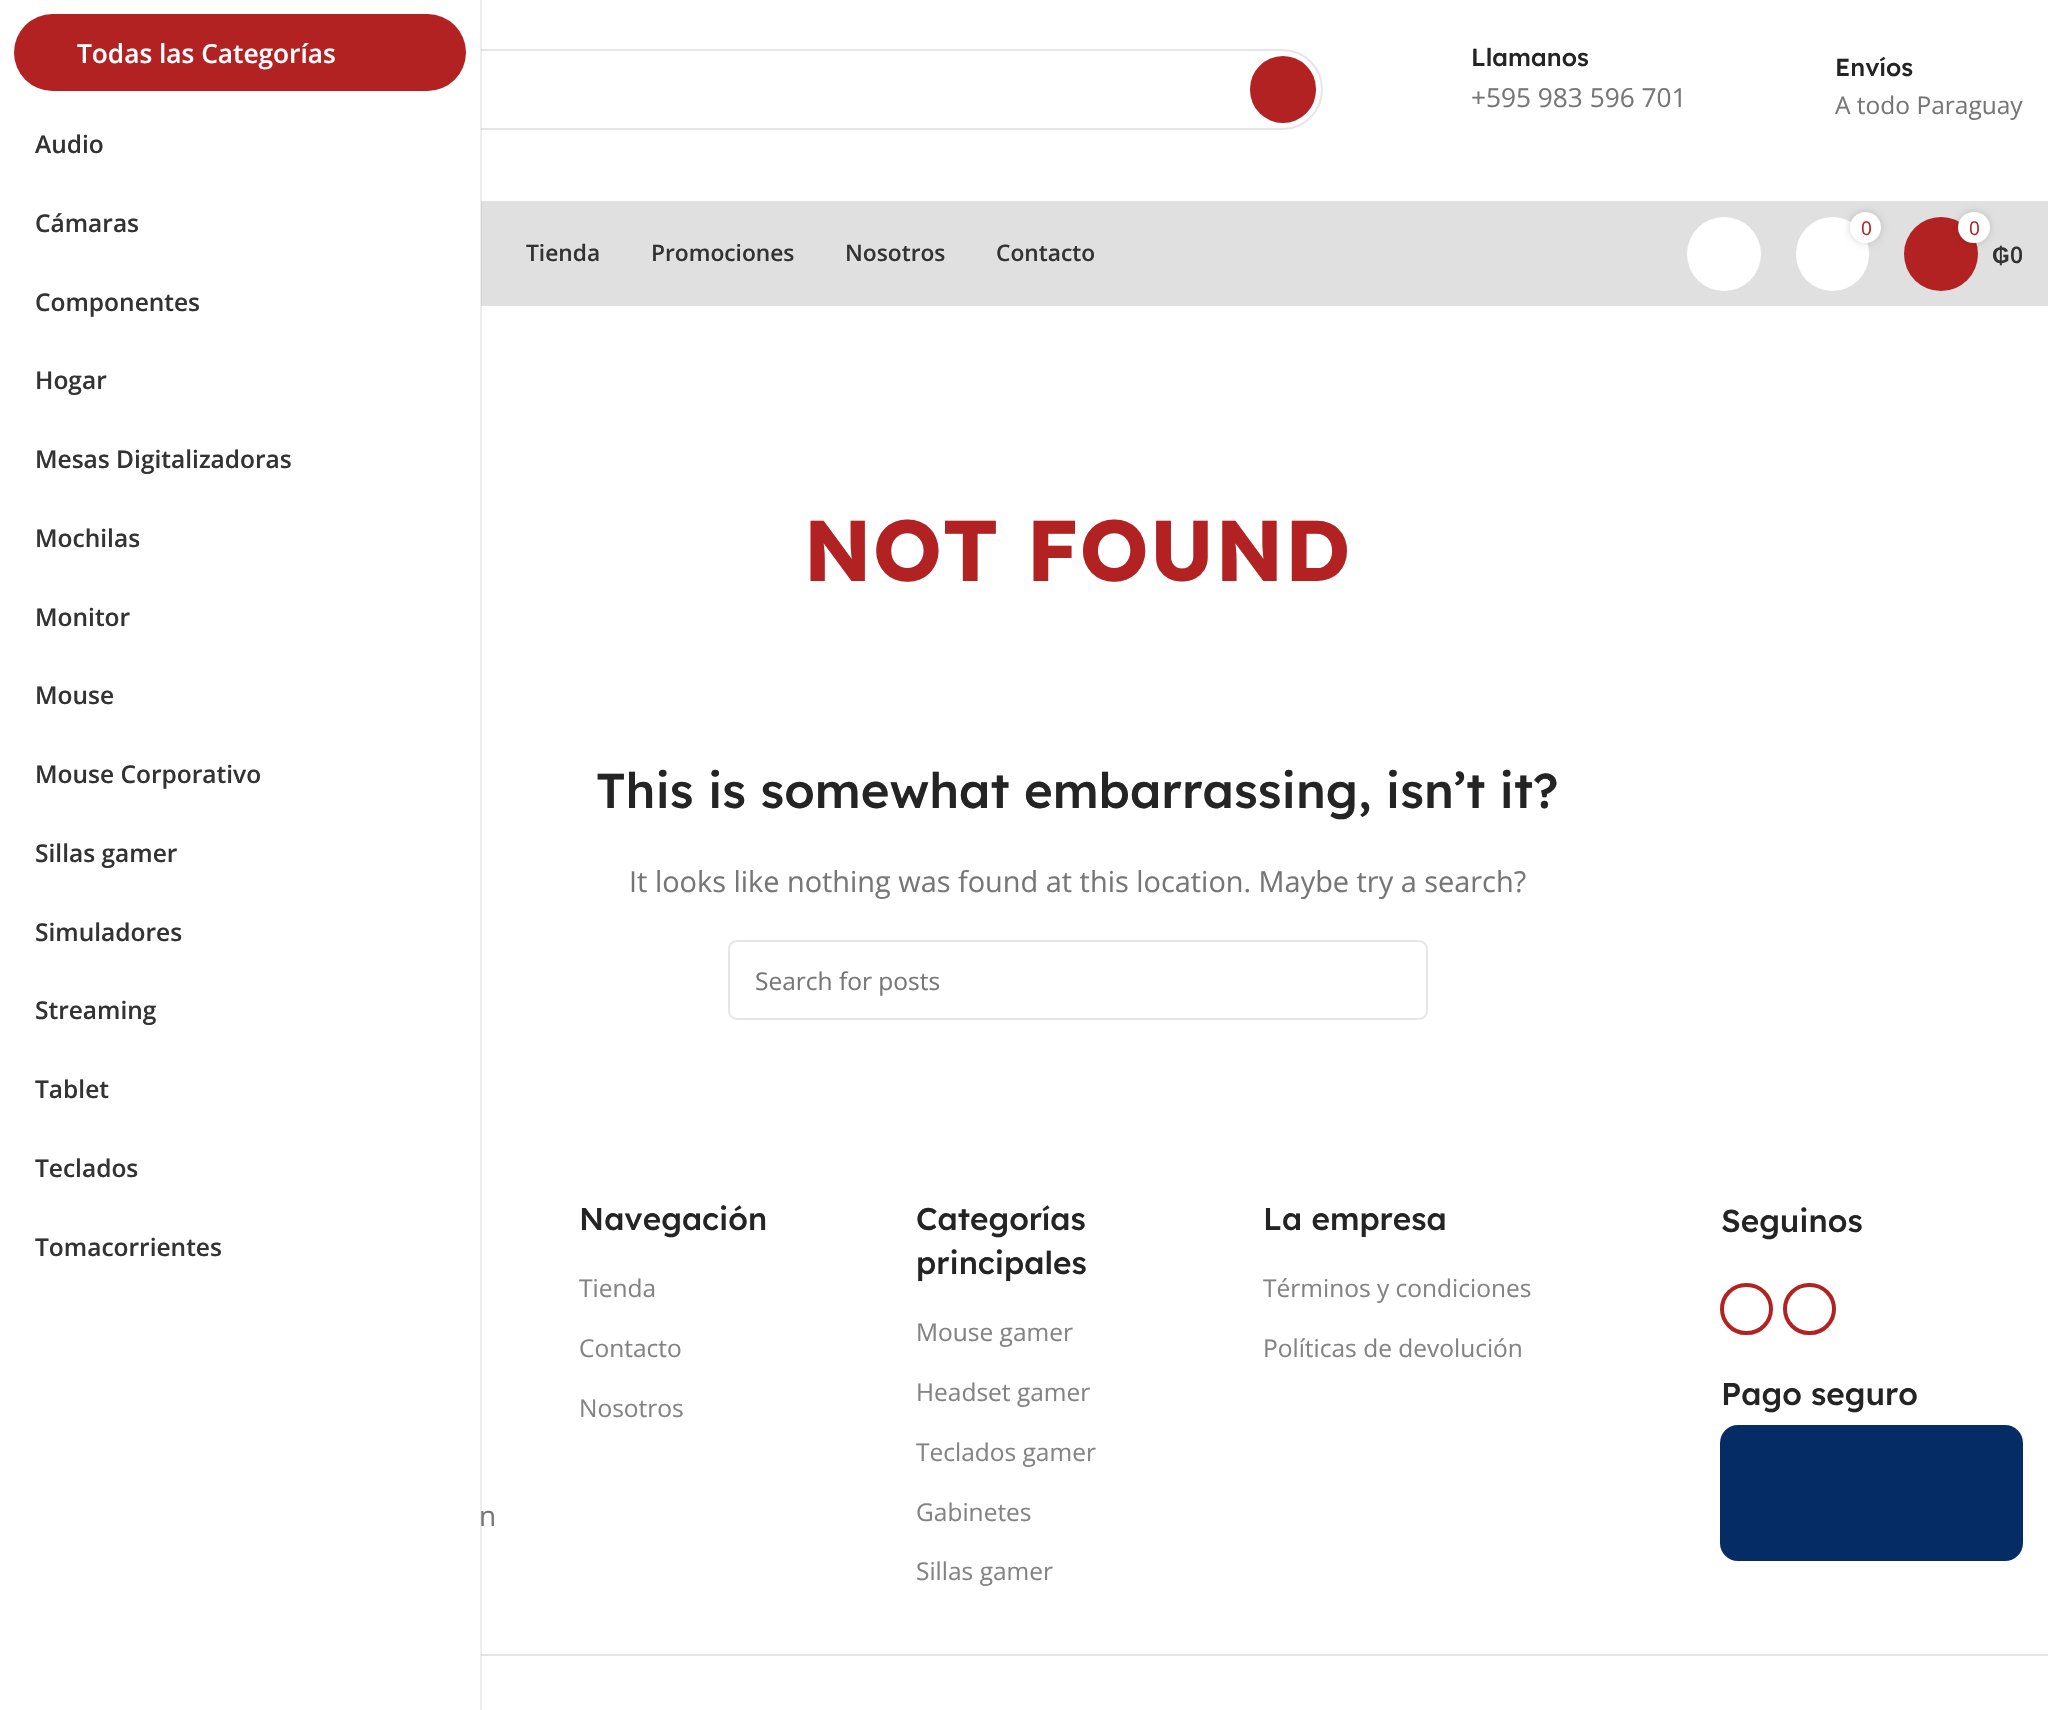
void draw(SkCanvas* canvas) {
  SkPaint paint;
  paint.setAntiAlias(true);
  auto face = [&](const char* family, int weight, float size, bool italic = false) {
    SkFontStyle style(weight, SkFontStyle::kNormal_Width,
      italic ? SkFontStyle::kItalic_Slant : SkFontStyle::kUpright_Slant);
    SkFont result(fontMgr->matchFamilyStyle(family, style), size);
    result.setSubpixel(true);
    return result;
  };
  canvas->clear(0xffffffff);
  paint.setStroke(true);
  paint.setStrokeWidth(2);
  paint.setColor(0xffe6e6e6);
  canvas->drawRoundRect(SkRect::MakeXYWH(202, 50, 1120, 79), 39.5f, 39.5f, paint);
  paint.setStroke(false);
  paint.setColor(0xffb22222);
  canvas->drawRoundRect(SkRect::MakeXYWH(1250, 56, 66, 67), 33, 33, paint);
  paint.setColor(0xffe0e0e0);
  canvas->drawRect(SkRect::MakeXYWH(481, 201, 1567, 105), paint);
  paint.setColor(0xffffffff);
  canvas->drawCircle(1724, 254, 37, paint);
  canvas->drawRoundRect(SkRect::MakeXYWH(1796, 217, 73, 74), 36.5f, 36.5f, paint);
  paint.setColor(0x2b000000);
  paint.setMaskFilter(SkMaskFilter::MakeBlur(kNormal_SkBlurStyle, 3.5f));
  canvas->drawRoundRect(SkRect::MakeXYWH(1850, 212, 31, 31), 15.5f, 15.5f, paint);
  paint.setMaskFilter(nullptr);
  paint.setColor(0xffffffff);
  canvas->drawCircle(1865.5f, 227.5f, 15.5f, paint);
  paint.setColor(0xffb22222);
  canvas->drawCircle(1941, 254, 37, paint);
  paint.setColor(0x2b000000);
  paint.setMaskFilter(SkMaskFilter::MakeBlur(kNormal_SkBlurStyle, 3.5f));
  canvas->drawRoundRect(SkRect::MakeXYWH(1958, 212, 32, 31), 15.5f, 15.5f, paint);
  paint.setMaskFilter(nullptr);
  paint.setColor(0xffffffff);
  canvas->drawRoundRect(SkRect::MakeXYWH(1958, 212, 32, 31), 15.5f, 15.5f, paint);
  paint.setStroke(true);
  paint.setColor(0xffe6e6e6);
  canvas->drawRoundRect(SkRect::MakeXYWH(729, 941, 698, 78), 8, 8, paint);
  paint.setStrokeWidth(4);
  paint.setColor(0xffb22222);
  canvas->drawRoundRect(SkRect::MakeXYWH(1722, 1285, 49, 48), 24, 24, paint);
  canvas->drawRoundRect(SkRect::MakeXYWH(1785, 1285, 49, 48), 24, 24, paint);
  paint.setStroke(false);
  paint.setColor(0xff052c65);
  canvas->drawRoundRect(SkRect::MakeXYWH(1720, 1425, 303, 136), 18, 18, paint);
  paint.setColor(0xffe4e4e4);
  canvas->drawRect(SkRect::MakeXYWH(481, 1654, 1567, 2), paint);
  auto f0 = face("Open Sans", 600, 24.5f);
  paint.setColor(0xff333333);
  {
    const struct { const char* s; float x, y; } items[] = {
      {"Audio", 35, 153},
      {"Cámaras", 35, 232},
      {"Componentes", 35, 311},
      {"Hogar", 35, 389},
      {"Mochilas", 35, 547},
      {"Monitor", 35, 626},
      {"Mouse", 35, 704},
      {"Sillas gamer", 35, 862},
      {"Simuladores", 35, 941},
      {"Streaming", 35, 1019},
      {"Tablet", 35, 1098},
      {"Teclados", 35, 1177},
    };
    for (auto [s, x, y] : items) {
      canvas->drawString(s, x, y, f0, paint);
    }
  }
  auto f1 = face("Lexend Deca", 500, 24.5f);
  paint.setColor(0xff242424);
  canvas->drawString("Llamanos", 1471, 66, f1, paint);
  auto f2 = face("Open Sans", 400, 26.25f);
  paint.setColor(0xff767676);
  canvas->drawString("+595 983 596 701", 1471, 107, f2, paint);
  paint.setColor(0xff242424);
  canvas->drawString("Envíos", 1835, 76, f1, paint);
  auto f3 = face("Open Sans", 400, 24.5f);
  paint.setColor(0xff767676);
  canvas->drawString("A todo Paraguay", 1835, 114, f3, paint);
  auto f4 = face("Open Sans", 600, 22.75f);
  paint.setColor(0xff333333);
  {
    const struct { const char* s; float x, y; } items[] = {
      {"Tienda", 526, 261},
      {"Promociones", 651, 261},
      {"Nosotros", 845, 261},
      {"Contacto", 996, 261},
    };
    for (auto [s, x, y] : items) {
      canvas->drawString(s, x, y, f4, paint);
    }
  }
  auto f5 = face("Open Sans", 400, 19);
  paint.setColor(0xffb22222);
  canvas->drawString("0", 1861, 235, f5, paint);
  canvas->drawString("0", 1969, 235, f5, paint);
  auto f6 = face("Liberation Sans", 700, 22.75f);
  paint.setColor(0xff333333);
  canvas->drawString("₲", 1992, 263, f6, paint);
  canvas->drawString("0", 2010, 263, f4, paint);
  auto f7 = face("Lexend Deca", 700, 86);
  paint.setColor(0xffb22222);
  canvas->drawString("NOT FOUND", 803, 581, f7, paint);
  auto f8 = face("Lexend Deca", 500, 49);
  paint.setColor(0xff242424);
  canvas->drawString("This is somewhat embarrassing, isn’t it?", 596, 808, f8, paint);
  auto f9 = face("Open Sans", 400, 28.9f);
  paint.setColor(0xff767676);
  canvas->drawString("It looks like nothing was found at this location. Maybe try a search?", 629, 892, f9, paint);
  canvas->drawString("Search for posts", 755, 990, f3, paint);
  auto f10 = face("Lexend Deca", 500, 31.5f);
  paint.setColor(0xff242424);
  canvas->drawString("Navegación", 579, 1230, f10, paint);
  paint.setColor(0xff838383);
  {
    const struct { const char* s; float x, y; } items[] = {
      {"Tienda", 579, 1297},
      {"Contacto", 579, 1357},
      {"Nosotros", 579, 1417},
    };
    for (auto [s, x, y] : items) {
      canvas->drawString(s, x, y, f3, paint);
    }
  }
  paint.setColor(0xff242424);
  canvas->drawString("Categorías", 916, 1230, f10, paint);
  canvas->drawString("principales", 916, 1274, f10, paint);
  paint.setColor(0xff838383);
  {
    const struct { const char* s; float x, y; } items[] = {
      {"Mouse gamer", 916, 1341},
      {"Headset gamer", 916, 1401},
      {"Teclados gamer", 916, 1461},
      {"Gabinetes", 916, 1521},
      {"Sillas gamer", 916, 1580},
    };
    for (auto [s, x, y] : items) {
      canvas->drawString(s, x, y, f3, paint);
    }
  }
  paint.setColor(0xff242424);
  canvas->drawString("La empresa", 1263, 1230, f10, paint);
  paint.setColor(0xff838383);
  canvas->drawString("Términos y condiciones", 1263, 1297, f3, paint);
  canvas->drawString("Políticas de devolución", 1263, 1357, f3, paint);
  paint.setColor(0xff242424);
  canvas->drawString("Seguinos", 1721, 1232, f10, paint);
  canvas->drawString("Pago seguro", 1721, 1405, f10, paint);
  auto f11 = face("Open Sans", 400, 28);
  paint.setColor(0xff767676);
  canvas->drawString("n", 479, 1526, f11, paint);
  paint.setColor(0xffffffff);
  canvas->drawRect(SkRect::MakeXYWH(201, 49, 280, 1477), paint);
  paint.setColor(0xff333333);
  {
    const struct { const char* s; float x, y; } items[] = {
      {"Tomacorrientes", 35, 1256},
      {"Mouse Corporativo", 35, 783},
      {"Mesas Digitalizadoras", 35, 468},
    };
    for (auto [s, x, y] : items) {
      canvas->drawString(s, x, y, f0, paint);
    }
  }
  paint.setColor(0xffb22222);
  canvas->drawRoundRect(SkRect::MakeXYWH(14, 14, 452, 77), 38.5f, 38.5f, paint);
  auto f12 = face("Open Sans", 600, 26.25f);
  paint.setColor(0xffffffff);
  canvas->drawString("Todas las Categorías", 77, 63, f12, paint);
  paint.setColor(0x1f767676);
  canvas->drawRect(SkRect::MakeXYWH(480, 0, 2, 1710), paint);
}
